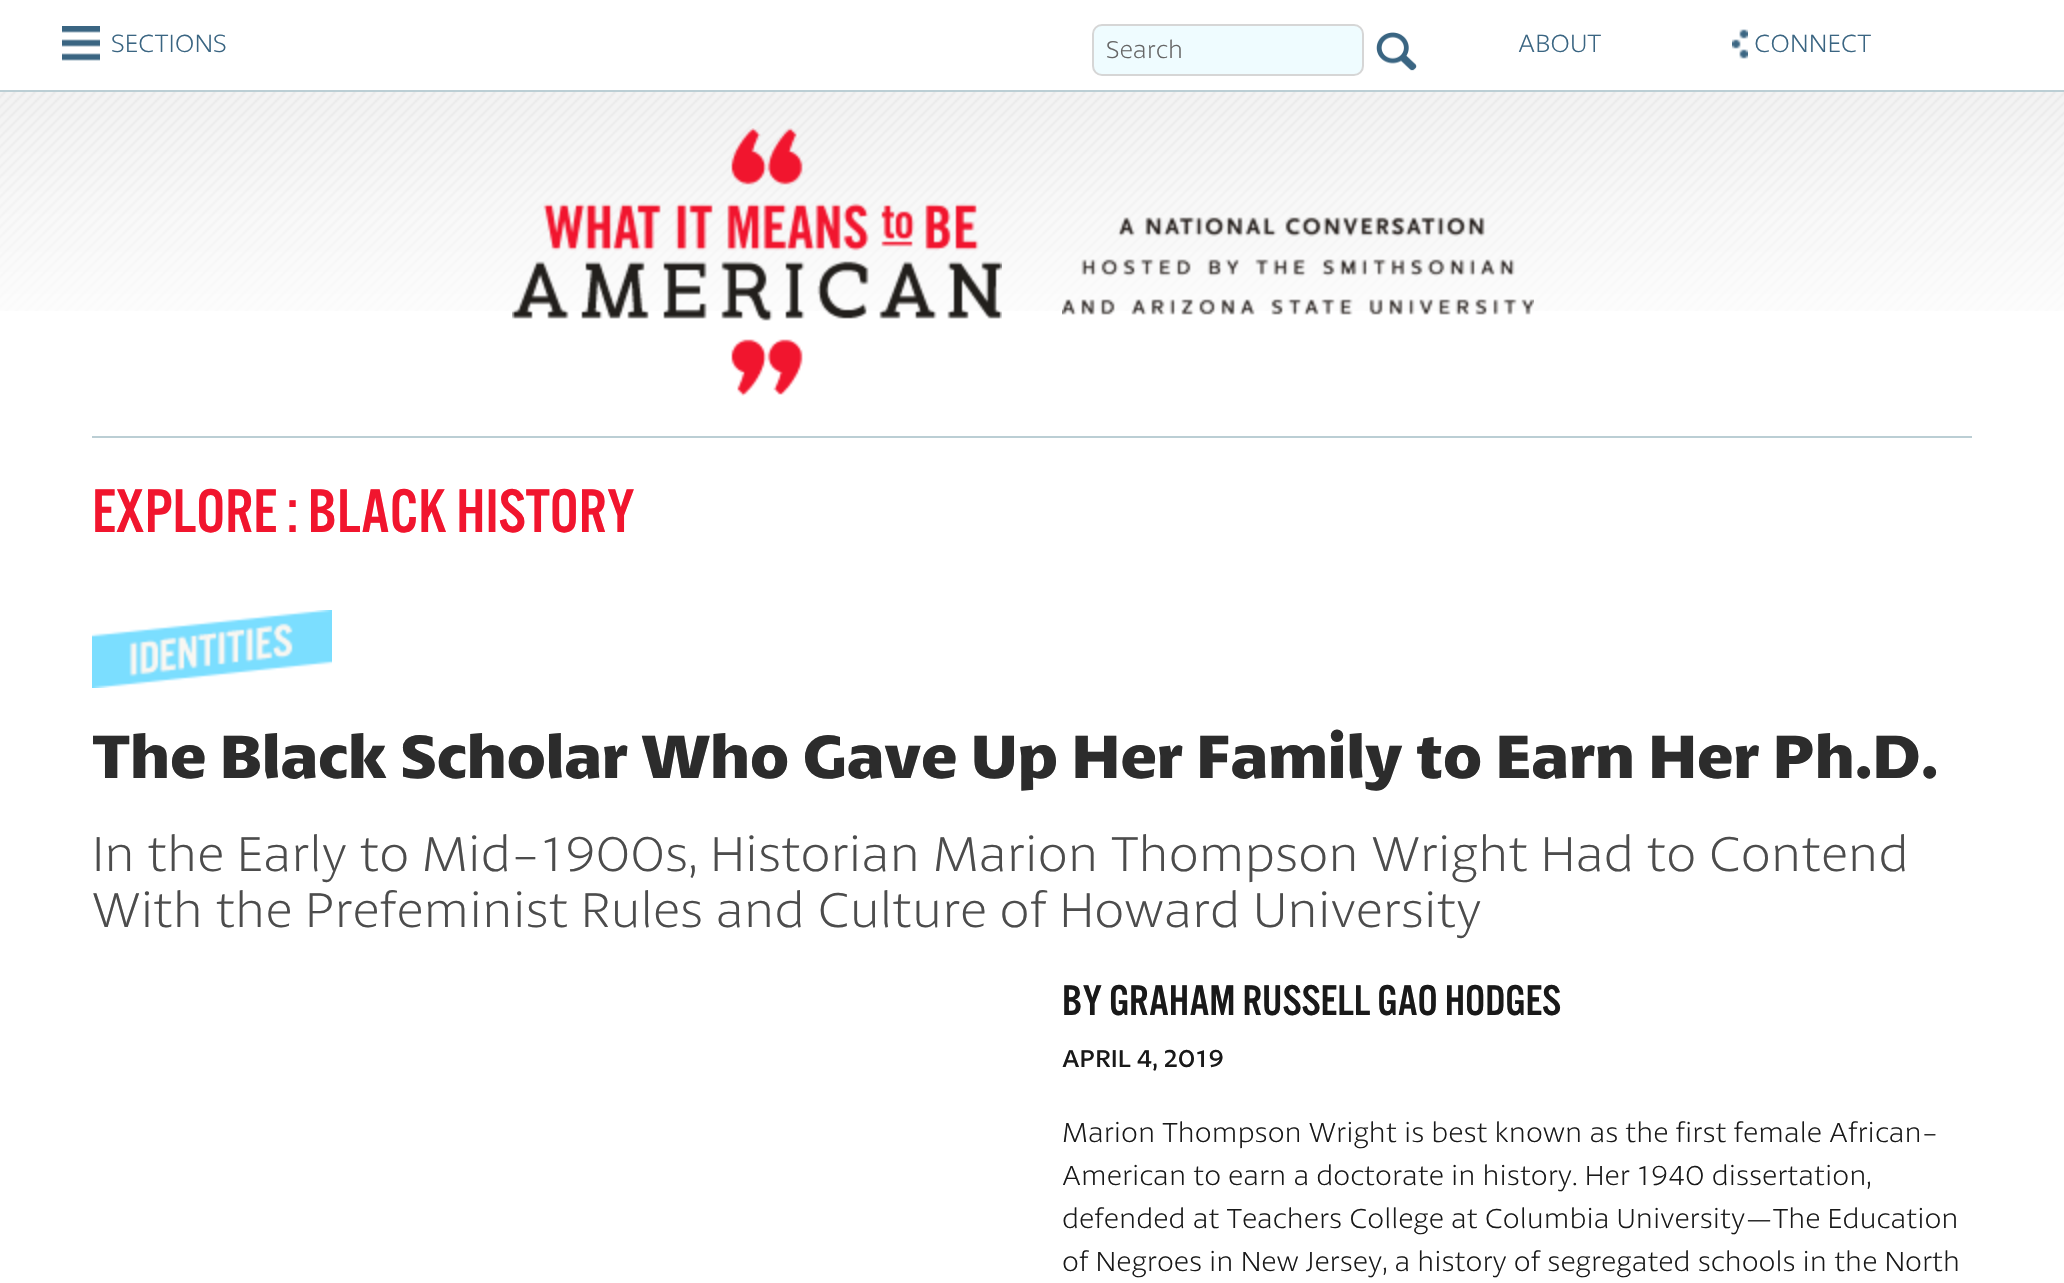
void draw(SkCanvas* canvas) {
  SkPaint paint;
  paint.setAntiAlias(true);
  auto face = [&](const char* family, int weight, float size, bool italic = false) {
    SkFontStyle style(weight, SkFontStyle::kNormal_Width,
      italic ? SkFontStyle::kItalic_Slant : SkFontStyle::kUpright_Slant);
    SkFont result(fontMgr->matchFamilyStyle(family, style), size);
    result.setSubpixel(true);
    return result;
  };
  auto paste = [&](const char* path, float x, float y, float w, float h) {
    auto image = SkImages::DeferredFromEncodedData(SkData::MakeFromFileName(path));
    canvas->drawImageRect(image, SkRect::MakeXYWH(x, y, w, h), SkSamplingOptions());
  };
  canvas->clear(0xffffffff);
  paint.setColor(0xffbbced4);
  canvas->drawRect(SkRect::MakeXYWH(0, 90, 2064, 2), paint);
  paste("img/1.png", 62, 26, 38, 35);
  paint.setColor(0xffeffcff);
  canvas->drawRoundRect(SkRect::MakeXYWH(1093, 25, 270, 50), 9, 9, paint);
  paint.setStroke(true);
  paint.setStrokeWidth(2);
  paint.setColor(0xffd6d6d6);
  canvas->drawRoundRect(SkRect::MakeXYWH(1093, 25, 270, 50), 9, 9, paint);
  paste("img/2.png", 1376, 32, 41, 39);
  paste("img/3.png", 1732, 29, 16, 30);
  paste("img/4.png", 0, 92, 2064, 219);
  paste("img/5.png", 512, 128, 490, 268);
  paste("img/6.png", 1062, 217, 472, 98);
  paint.setStroke(false);
  paint.setColor(0xffbbced4);
  canvas->drawRect(SkRect::MakeXYWH(92, 436, 1880, 2), paint);
  paste("img/7.png", 92, 610, 240, 78);
  auto f0 = face("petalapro", 400, 26);
  paint.setColor(0xff3a6582);
  canvas->drawString("SECTIONS", 111, 52, f0, paint);
  auto f1 = face("petalapro", 400, 25.5f);
  paint.setColor(0xff666666);
  canvas->drawString("Search", 1106, 58, f1, paint);
  paint.setColor(0xff3a6582);
  canvas->drawString("ABOUT", 1518, 52, f0, paint);
  canvas->drawString("CONNECT", 1754, 52, f0, paint);
  auto f2 = face("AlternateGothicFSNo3", 400, 64);
  paint.setColor(0xfff1152e);
  canvas->drawString("EXPLORE : BLACK HISTORY", 92, 532, f2, paint);
  auto f3 = face("petalapro", 700, 64);
  paint.setColor(0xff2c2c2c);
  canvas->drawString("The Black Scholar Who Gave Up Her Family to Earn Her Ph.D.", 92, 778, f3, paint);
  auto f4 = face("petalapro", 400, 51.2f);
  paint.setColor(0xff4c4c4c);
  canvas->drawString("In the Early to Mid-1900s, Historian Marion Thompson Wright Had to Contend", 92, 871, f4, paint);
  canvas->drawString("With the Prefeminist Rules and Culture of Howard University", 92, 927, f4, paint);
  auto f5 = face("AlternateGothicFSNo3", 400, 44.75f);
  paint.setColor(0xff191919);
  canvas->drawString("BY GRAHAM RUSSELL GAO HODGES", 1062, 1015, f5, paint);
  auto f6 = face("petalapro", 600, 25.5f);
  canvas->drawString("APRIL 4, 2019", 1062, 1067, f6, paint);
  auto f7 = face("petalapro", 400, 28.8f);
  {
    const struct { const char* s; float x, y; } items[] = {
      {"Marion Thompson Wright is best known as the first female African-", 1062, 1142},
      {"American to earn a doctorate in history. Her 1940 dissertation,", 1062, 1185},
      {"defended at Teachers College at Columbia University—The Education", 1062, 1228},
      {"of Negroes in New Jersey, a history of segregated schools in the North", 1062, 1271},
    };
    for (auto [s, x, y] : items) {
      canvas->drawString(s, x, y, f7, paint);
    }
  }
}
